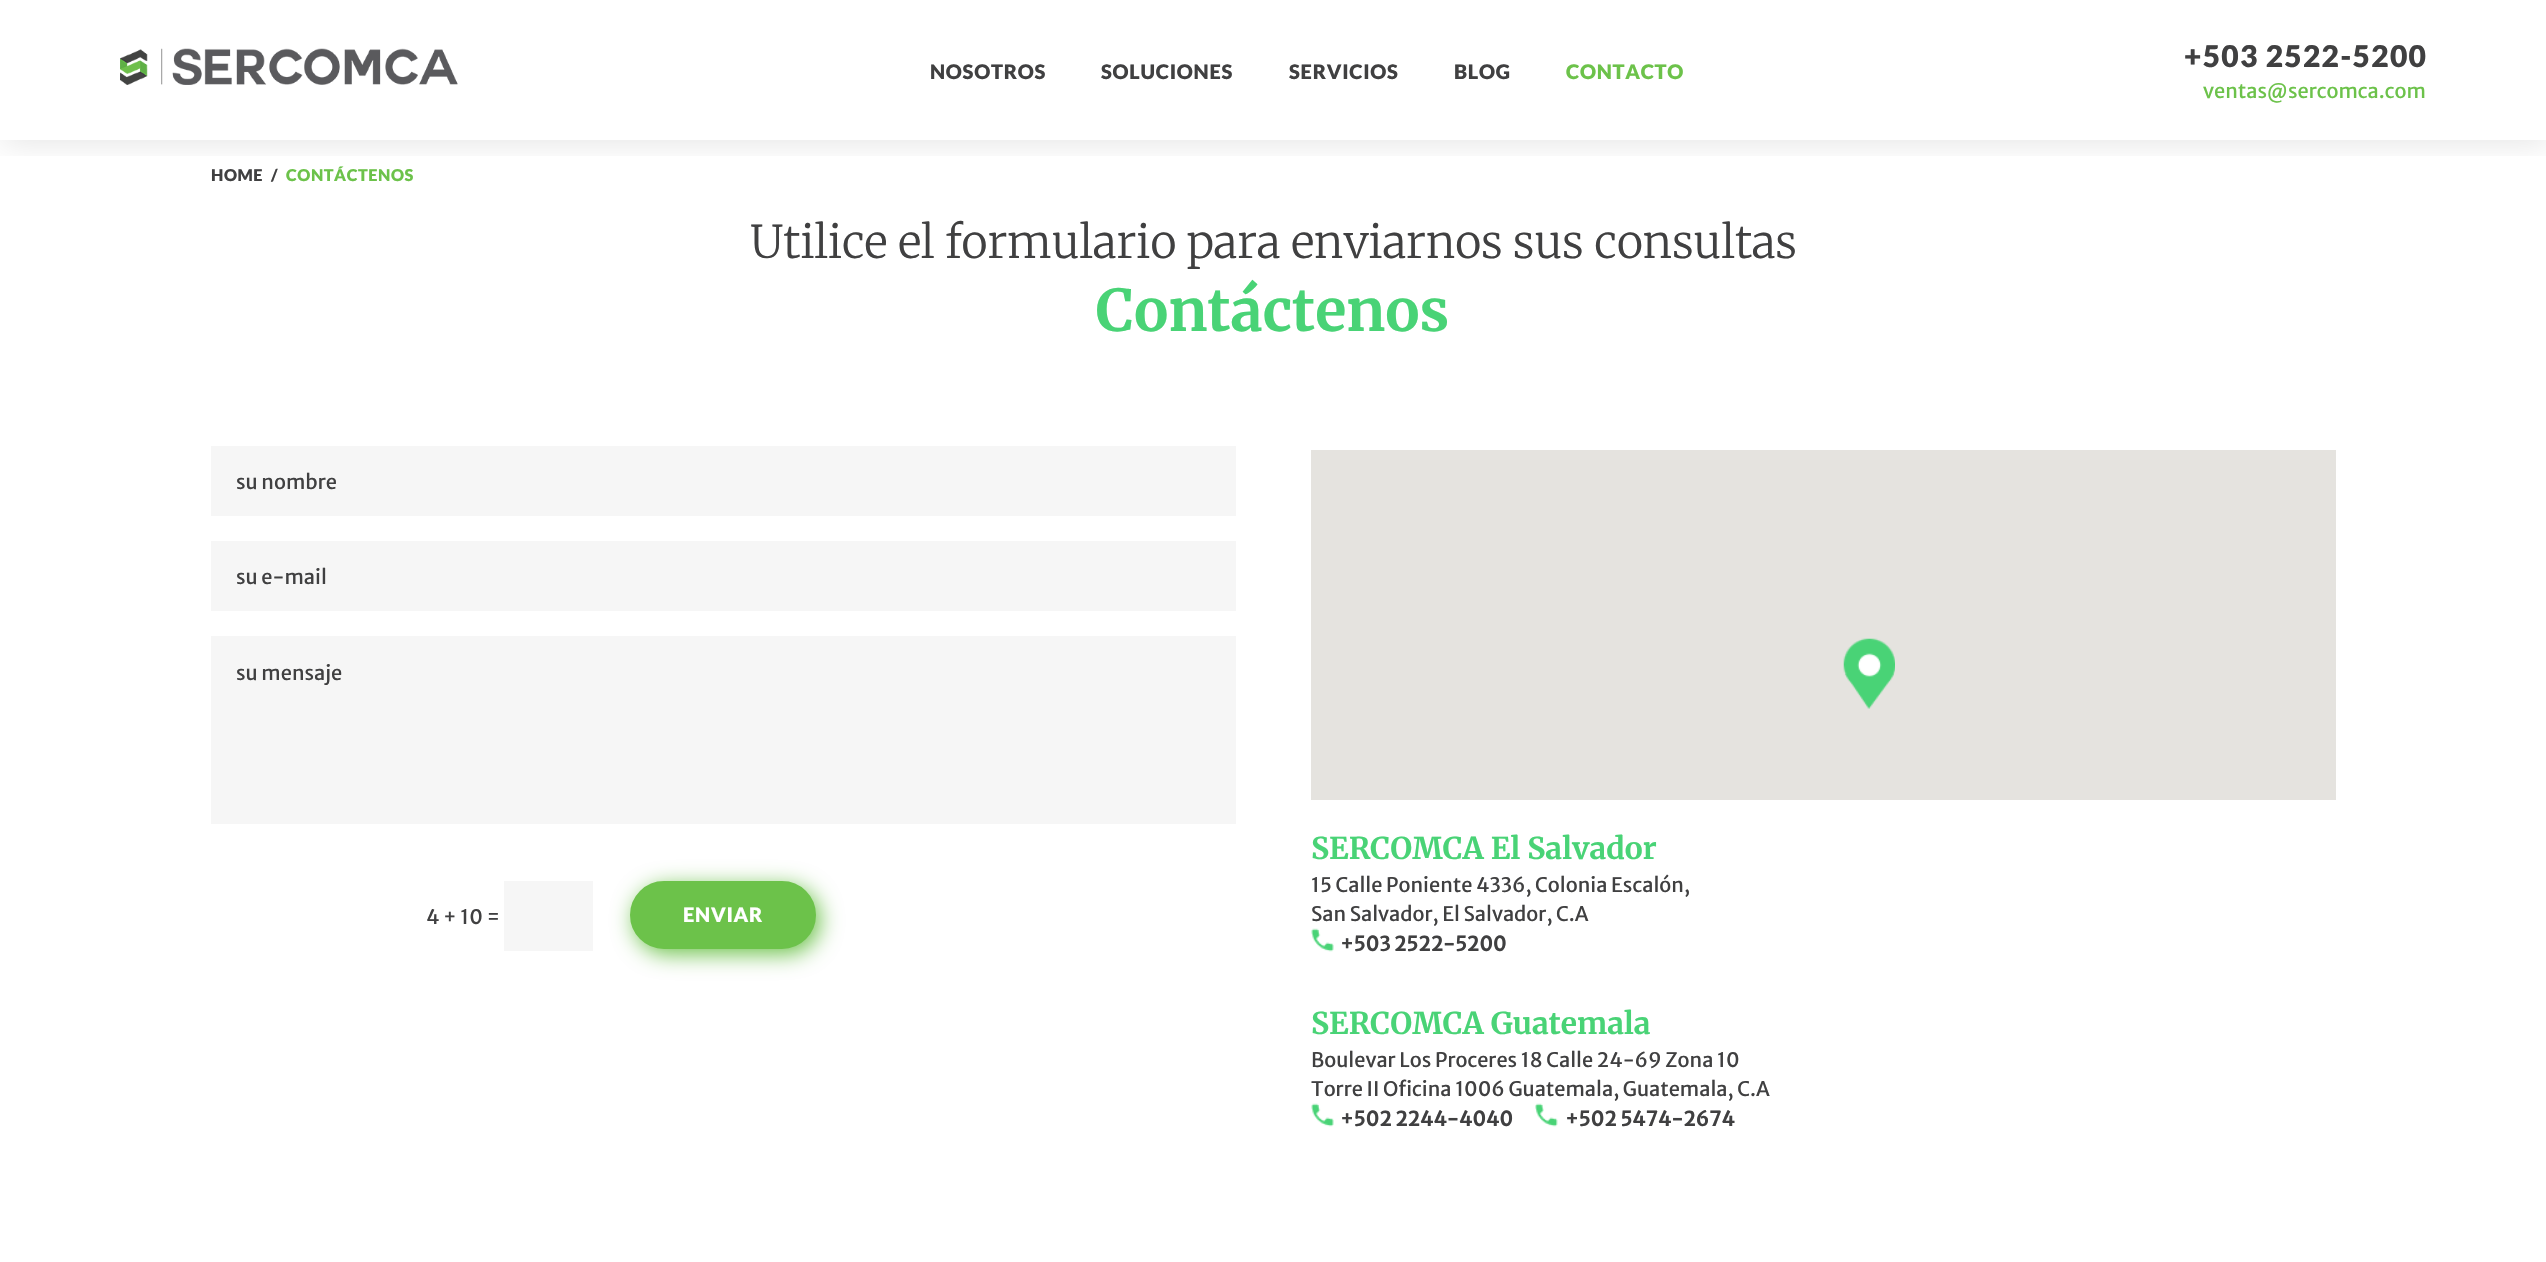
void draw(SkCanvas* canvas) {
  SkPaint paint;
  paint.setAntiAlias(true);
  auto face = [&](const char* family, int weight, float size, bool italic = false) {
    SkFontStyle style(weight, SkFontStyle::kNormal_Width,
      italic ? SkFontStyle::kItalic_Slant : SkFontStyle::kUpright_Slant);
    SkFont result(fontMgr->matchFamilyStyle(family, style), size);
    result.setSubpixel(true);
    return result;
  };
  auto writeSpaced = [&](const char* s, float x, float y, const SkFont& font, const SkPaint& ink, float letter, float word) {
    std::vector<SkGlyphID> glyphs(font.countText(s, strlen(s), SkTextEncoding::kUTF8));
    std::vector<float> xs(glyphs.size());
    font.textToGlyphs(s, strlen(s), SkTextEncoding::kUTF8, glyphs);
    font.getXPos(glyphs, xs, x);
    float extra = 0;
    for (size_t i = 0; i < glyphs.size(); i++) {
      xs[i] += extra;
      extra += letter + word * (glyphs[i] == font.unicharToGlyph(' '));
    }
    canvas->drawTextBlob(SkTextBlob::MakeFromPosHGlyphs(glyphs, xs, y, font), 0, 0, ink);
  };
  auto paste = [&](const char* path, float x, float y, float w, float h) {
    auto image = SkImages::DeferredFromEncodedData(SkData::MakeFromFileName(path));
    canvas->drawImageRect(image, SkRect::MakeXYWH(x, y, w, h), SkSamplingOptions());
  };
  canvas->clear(0xffffffff);
  canvas->save();
  canvas->clipRect(SkRect::MakeXYWH(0, 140, 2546, 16));
  paint.setColor(0x1a000000);
  paint.setMaskFilter(SkMaskFilter::MakeBlur(kNormal_SkBlurStyle, 15));
  canvas->drawRect(SkRect::MakeXYWH(3, 3, 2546, 140), paint);
  paint.setMaskFilter(nullptr);
  canvas->restore();
  paste("img/1.png", 120, 48, 338, 37);
  {
    const struct { float x, y, w, h; SkColor color; } items[] = {
      {211, 446, 1025, 70, 0xfff6f6f6},
      {211, 541, 1025, 70, 0xfff6f6f6},
      {211, 636, 1025, 188, 0xfff6f6f6},
      {504, 881, 89, 70, 0xfff6f6f6},
    };
    for (auto [x, y, w, h, color] : items) {
      paint.setColor(color);
      canvas->drawRect(SkRect::MakeXYWH(x, y, w, h), paint);
    }
  }
  paint.setColor(0xff6cc24a);
  paint.setMaskFilter(SkMaskFilter::MakeBlur(kNormal_SkBlurStyle, 11));
  canvas->drawRoundRect(SkRect::MakeXYWH(634, 886, 186, 68), 34, 34, paint);
  paint.setMaskFilter(nullptr);
  canvas->drawRoundRect(SkRect::MakeXYWH(631.5f, 882.5f, 183, 65), 32.5f, 32.5f, paint);
  paint.setStroke(true);
  paint.setStrokeWidth(3);
  canvas->drawRoundRect(SkRect::MakeXYWH(631.5f, 882.5f, 183, 65), 32.5f, 32.5f, paint);
  paint.setStroke(false);
  paint.setColor(0xffe5e3df);
  canvas->drawRect(SkRect::MakeXYWH(1311, 450, 1025, 350), paint);
  paste("img/2.png", 1843, 638, 52, 71);
  paste("img/3.png", 1311, 928, 23, 24);
  paste("img/3.png", 1311, 1103, 23, 24);
  paste("img/4.png", 1535, 1103, 23, 24);
  auto f0 = face("Lato", 900, 20);
  paint.setColor(0xff404041);
  {
    const struct { const char* s; float x, y; } items[] = {
      {"NOSOTROS", 930, 79},
      {"SOLUCIONES", 1101, 79},
      {"SERVICIOS", 1289, 79},
      {"BLOG", 1454, 79},
    };
    for (auto [s, x, y] : items) {
      writeSpaced(s, x, y, f0, paint, 0.75f, 0);
    }
  }
  paint.setColor(0xff6cc24a);
  writeSpaced("CONTACTO", 1566, 79, f0, paint, 0.75f, 0);
  auto f1 = face("Lato", 900, 30);
  paint.setColor(0xff404041);
  writeSpaced("+503 2522-5200", 2184, 67, f1, paint, 1.25f, 0);
  auto f2 = face("Merriweather Sans", 400, 20);
  paint.setColor(0xff6cc24a);
  canvas->drawString("ventas@sercomca.com", 2203, 98, f2, paint);
  auto f3 = face("Lato", 900, 16.25f);
  paint.setColor(0xff404041);
  writeSpaced("HOME", 211, 181, f3, paint, 0.6f, 0);
  writeSpaced("/", 271, 181, f3, paint, 0.6f, 0);
  paint.setColor(0xff6cc24a);
  writeSpaced("CONTÁCTENOS", 286, 181, f3, paint, 0.6f, 0);
  auto f4 = face("Merriweather", 300, 45);
  paint.setColor(0xff404041);
  canvas->drawString("Utilice el formulario para enviarnos sus consultas", 750, 258, f4, paint);
  auto f5 = face("Merriweather", 700, 57.5f);
  paint.setColor(0xff49d376);
  canvas->drawString("Contáctenos", 1096, 331, f5, paint);
  paint.setColor(0xff404041);
  {
    const struct { const char* s; float x, y; } items[] = {
      {"su nombre", 236, 489},
      {"su e-mail", 236, 584},
      {"su mensaje", 236, 680},
      {"4 + 10 =", 426, 924},
    };
    for (auto [s, x, y] : items) {
      canvas->drawString(s, x, y, f2, paint);
    }
  }
  paint.setColor(0xffffffff);
  writeSpaced("ENVIAR", 683, 922, f0, paint, 0.75f, 0);
  auto f6 = face("Merriweather", 700, 30);
  paint.setColor(0xff49d376);
  canvas->drawString("SERCOMCA El Salvador", 1311, 859, f6, paint);
  paint.setColor(0xff404041);
  canvas->drawString("15 Calle Poniente 4336, Colonia Escalón,", 1311, 892, f2, paint);
  canvas->drawString("San Salvador, El Salvador, C.A", 1311, 921, f2, paint);
  auto f7 = face("Merriweather Sans", 700, 20);
  canvas->drawString("+503 2522-5200", 1340, 951, f7, paint);
  paint.setColor(0xff49d376);
  canvas->drawString("SERCOMCA Guatemala", 1311, 1034, f6, paint);
  paint.setColor(0xff404041);
  canvas->drawString("Boulevar Los Proceres 18 Calle 24-69 Zona 10", 1311, 1067, f2, paint);
  canvas->drawString("Torre II Oficina 1006 Guatemala, Guatemala, C.A", 1311, 1096, f2, paint);
  canvas->drawString("+502 2244-4040", 1340, 1126, f7, paint);
  canvas->drawString("+502 5474-2674", 1565, 1126, f7, paint);
}
